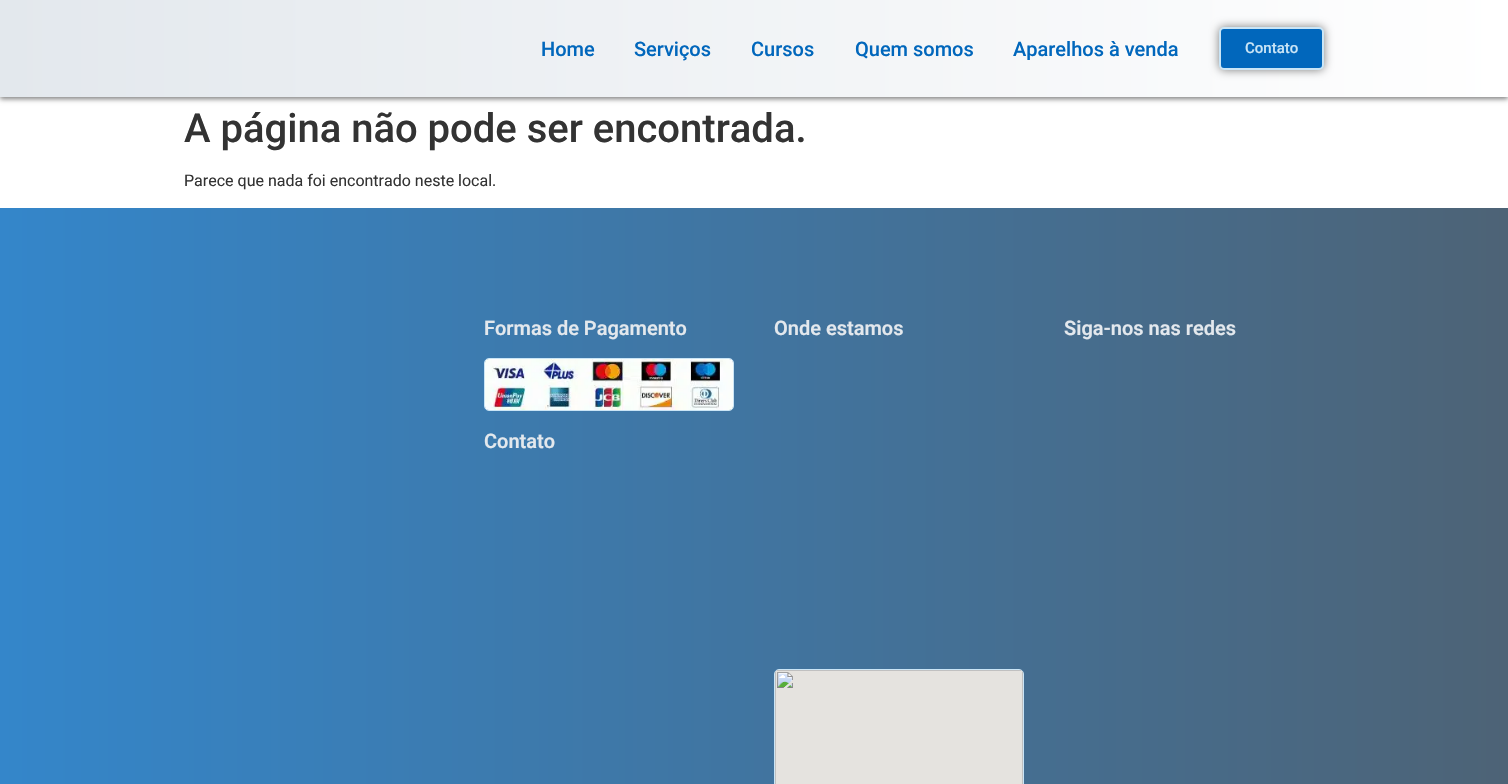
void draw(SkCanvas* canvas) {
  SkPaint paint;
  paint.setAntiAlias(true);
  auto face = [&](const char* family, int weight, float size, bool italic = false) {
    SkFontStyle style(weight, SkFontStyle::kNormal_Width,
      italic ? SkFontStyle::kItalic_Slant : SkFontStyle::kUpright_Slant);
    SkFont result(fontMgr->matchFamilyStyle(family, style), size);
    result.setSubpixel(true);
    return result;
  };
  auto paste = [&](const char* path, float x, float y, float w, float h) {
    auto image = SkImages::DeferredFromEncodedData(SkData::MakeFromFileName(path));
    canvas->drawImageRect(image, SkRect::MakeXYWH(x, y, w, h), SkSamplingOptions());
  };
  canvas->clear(0xffffffff);
  paint.setColor(0x80000000);
  paint.setMaskFilter(SkMaskFilter::MakeBlur(kNormal_SkBlurStyle, 2.5f));
  canvas->drawRect(SkRect::MakeXYWH(0, 2, 1508, 97), paint);
  paint.setMaskFilter(nullptr);
  {
    const SkColor colors[] = {0xffe3e8ed, 0xffffffff};
    const float stops[] = {0, 1};
    const SkPoint ends[] = {{0, 49}, {1508, 48}};
    paint.setShader(SkGradientShader::MakeLinear(ends, colors, stops, 2, SkTileMode::kClamp));
    paint.setAlpha(255);
  }
  canvas->drawRect(SkRect::MakeXYWH(0, 0, 1508, 97), paint);
  paint.setShader(nullptr);
  paint.setColor(0x80000000);
  paint.setMaskFilter(SkMaskFilter::MakeBlur(kNormal_SkBlurStyle, 5));
  canvas->drawRoundRect(SkRect::MakeXYWH(1219, 27, 105, 43), 5, 5, paint);
  paint.setMaskFilter(nullptr);
  paint.setColor(0xff0167bc);
  canvas->drawRoundRect(SkRect::MakeXYWH(1220, 28, 103, 41), 4, 4, paint);
  paint.setStroke(true);
  paint.setStrokeWidth(2);
  paint.setColor(0xffcae5f6);
  canvas->drawRoundRect(SkRect::MakeXYWH(1220, 28, 103, 41), 4, 4, paint);
  paint.setStroke(false);
  {
    const SkColor colors[] = {0xff3486ca, 0xff4d6376};
    const float stops[] = {0, 1};
    const SkPoint ends[] = {{0, 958}, {1508, 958}};
    paint.setShader(SkGradientShader::MakeLinear(ends, colors, stops, 2, SkTileMode::kClamp));
    paint.setAlpha(255);
  }
  canvas->drawRect(SkRect::MakeXYWH(0, 208, 1508, 576), paint);
  paint.setStroke(true);
  paint.setStrokeWidth(1);
  paint.setShader(nullptr);
  paint.setColor(0xffcae5f6);
  canvas->drawRoundRect(SkRect::MakeXYWH(484.5f, 358.5f, 249, 52), 4.5f, 4.5f, paint);
  paste("img/1.png", 485, 359, 248, 51);
  canvas->drawRoundRect(SkRect::MakeXYWH(774.5f, 669.5f, 249, 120), 4.5f, 4.5f, paint);
  paste("img/2.png", 775, 670, 248, 114);
  auto f0 = face("Roboto", 500, 20);
  paint.setStroke(false);
  paint.setColor(0xff0167bc);
  {
    const struct { const char* s; float x, y; } items[] = {
      {"Home", 541, 56},
      {"Serviços", 634, 56},
      {"Cursos", 751, 56},
      {"Quem somos", 855, 56},
      {"Aparelhos à venda", 1013, 56},
    };
    for (auto [s, x, y] : items) {
      canvas->drawString(s, x, y, f0, paint);
    }
  }
  auto f1 = face("Roboto", 500, 15);
  paint.setColor(0xffcae5f6);
  canvas->drawString("Contato", 1245, 53, f1, paint);
  auto f2 = face("Roboto", 500, 40);
  paint.setColor(0xff333333);
  canvas->drawString("A página não pode ser encontrada.", 184, 142, f2, paint);
  auto f3 = face("Roboto", 400, 16);
  canvas->drawString("Parece que nada foi encontrado neste local.", 184, 186, f3, paint);
  auto f4 = face("Roboto", 600, 20);
  paint.setColor(0xffe3e8ed);
  {
    const struct { const char* s; float x, y; } items[] = {
      {"Formas de Pagamento", 484, 335},
      {"Contato", 484, 448},
      {"Onde estamos", 774, 335},
      {"Siga-nos nas redes", 1064, 335},
    };
    for (auto [s, x, y] : items) {
      canvas->drawString(s, x, y, f4, paint);
    }
  }
}
